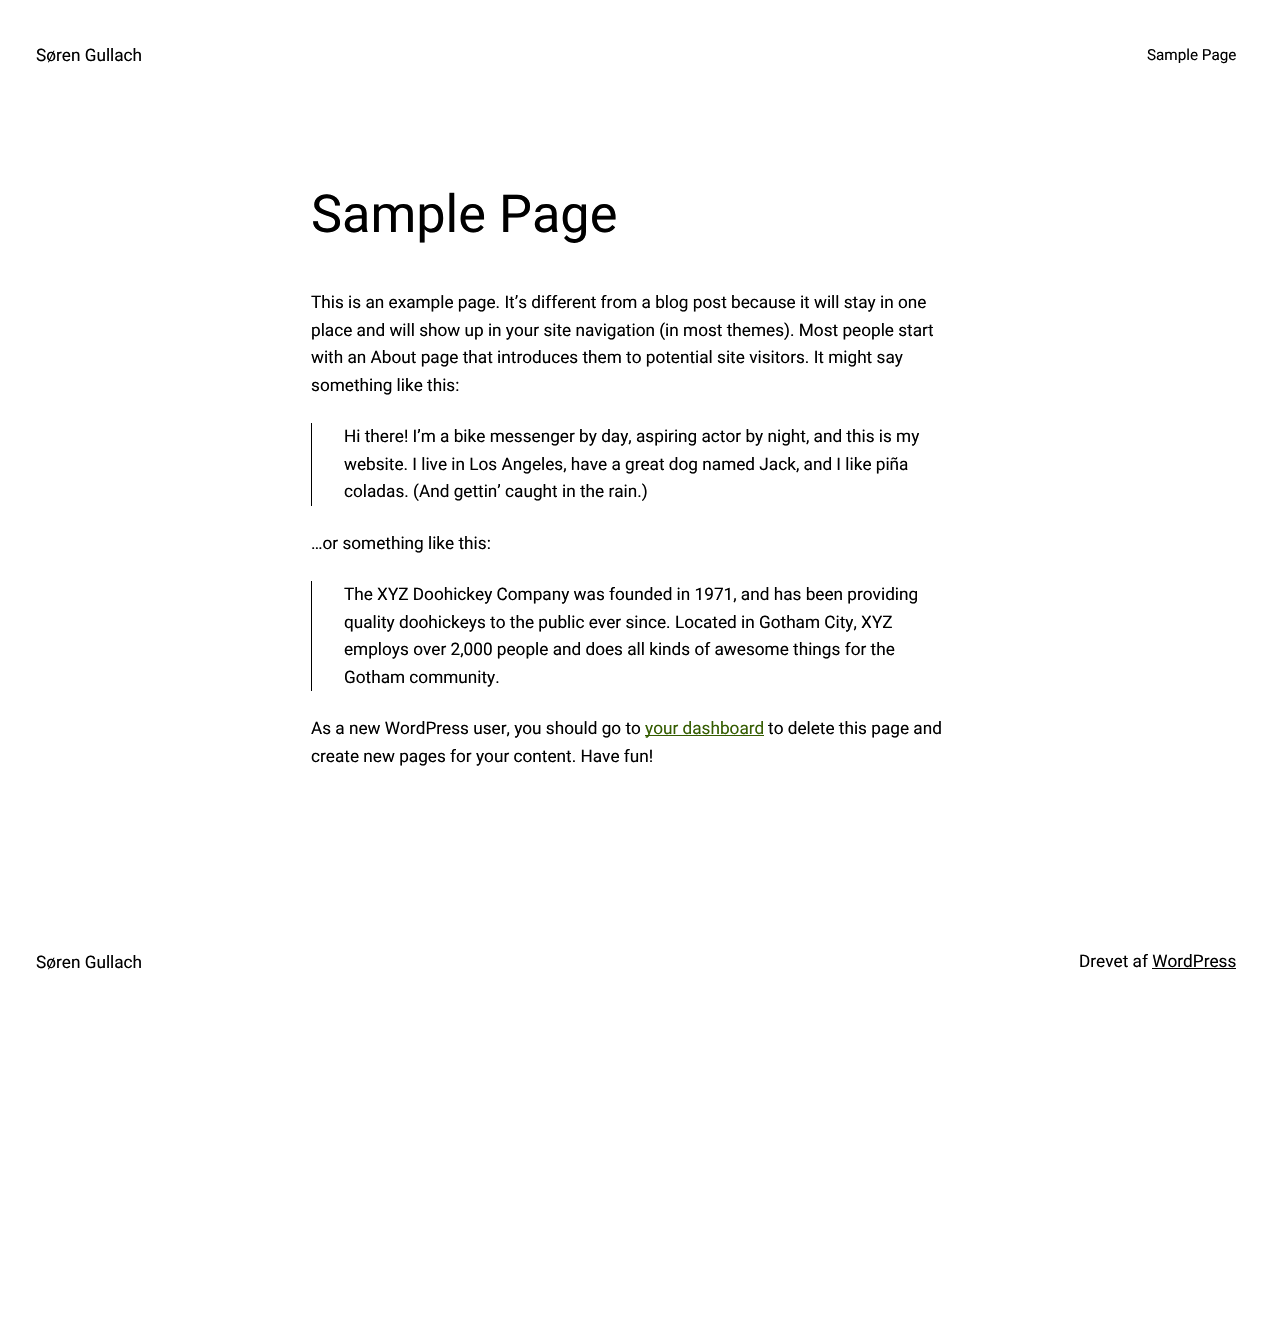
void draw(SkCanvas* canvas) {
  SkPaint paint;
  paint.setAntiAlias(true);
  auto face = [&](const char* family, int weight, float size, bool italic = false) {
    SkFontStyle style(weight, SkFontStyle::kNormal_Width,
      italic ? SkFontStyle::kItalic_Slant : SkFontStyle::kUpright_Slant);
    SkFont result(fontMgr->matchFamilyStyle(family, style), size);
    result.setSubpixel(true);
    return result;
  };
  canvas->clear(0xffffffff);
  {
    const struct { float x, y, w, h; SkColor color; } items[] = {
      {311, 423, 1, 83, 0xff000000},
      {311, 581, 1, 110, 0xff000000},
      {645, 735, 119, 1, 0xff345c00},
      {1152, 968, 84, 1, 0xff000000},
    };
    for (auto [x, y, w, h, color] : items) {
      paint.setColor(color);
      canvas->drawRect(SkRect::MakeXYWH(x, y, w, h), paint);
    }
  }
  auto f0 = face("Roboto", 400, 17.2f);
  canvas->drawString("Søren Gullach", 36, 61, f0, paint);
  auto f1 = face("Roboto", 400, 15.25f);
  canvas->drawString("Sample Page", 1147, 60, f1, paint);
  auto f2 = face("Roboto", 400, 52.25f);
  canvas->drawString("Sample Page", 311, 232, f2, paint);
  {
    const struct { const char* s; float x, y; } items[] = {
      {"This is an example page. It’s different from a blog post because it will stay in one", 311, 308},
      {"place and will show up in your site navigation (in most themes). Most people start", 311, 336},
      {"with an About page that introduces them to potential site visitors. It might say", 311, 363},
      {"something like this:", 311, 391},
      {"Hi there! I’m a bike messenger by day, aspiring actor by night, and this is my", 344, 442},
      {"website. I live in Los Angeles, have a great dog named Jack, and I like piña", 344, 470},
      {"coladas. (And gettin’ caught in the rain.)", 344, 497},
      {"…or something like this:", 311, 549},
      {"The XYZ Doohickey Company was founded in 1971, and has been providing", 344, 600},
      {"quality doohickeys to the public ever since. Located in Gotham City, XYZ", 344, 628},
      {"employs over 2,000 people and does all kinds of awesome things for the", 344, 655},
      {"Gotham community.", 344, 683},
      {"As a new WordPress user, you should go to", 311, 734},
    };
    for (auto [s, x, y] : items) {
      canvas->drawString(s, x, y, f0, paint);
    }
  }
  paint.setColor(0xff345c00);
  canvas->drawString("your dashboard", 645, 734, f0, paint);
  paint.setColor(0xff000000);
  {
    const struct { const char* s; float x, y; } items[] = {
      {"to delete this page and", 768, 734},
      {"create new pages for your content. Have fun!", 311, 762},
      {"Søren Gullach", 36, 968},
      {"Drevet af WordPress", 1079, 967},
    };
    for (auto [s, x, y] : items) {
      canvas->drawString(s, x, y, f0, paint);
    }
  }
}
